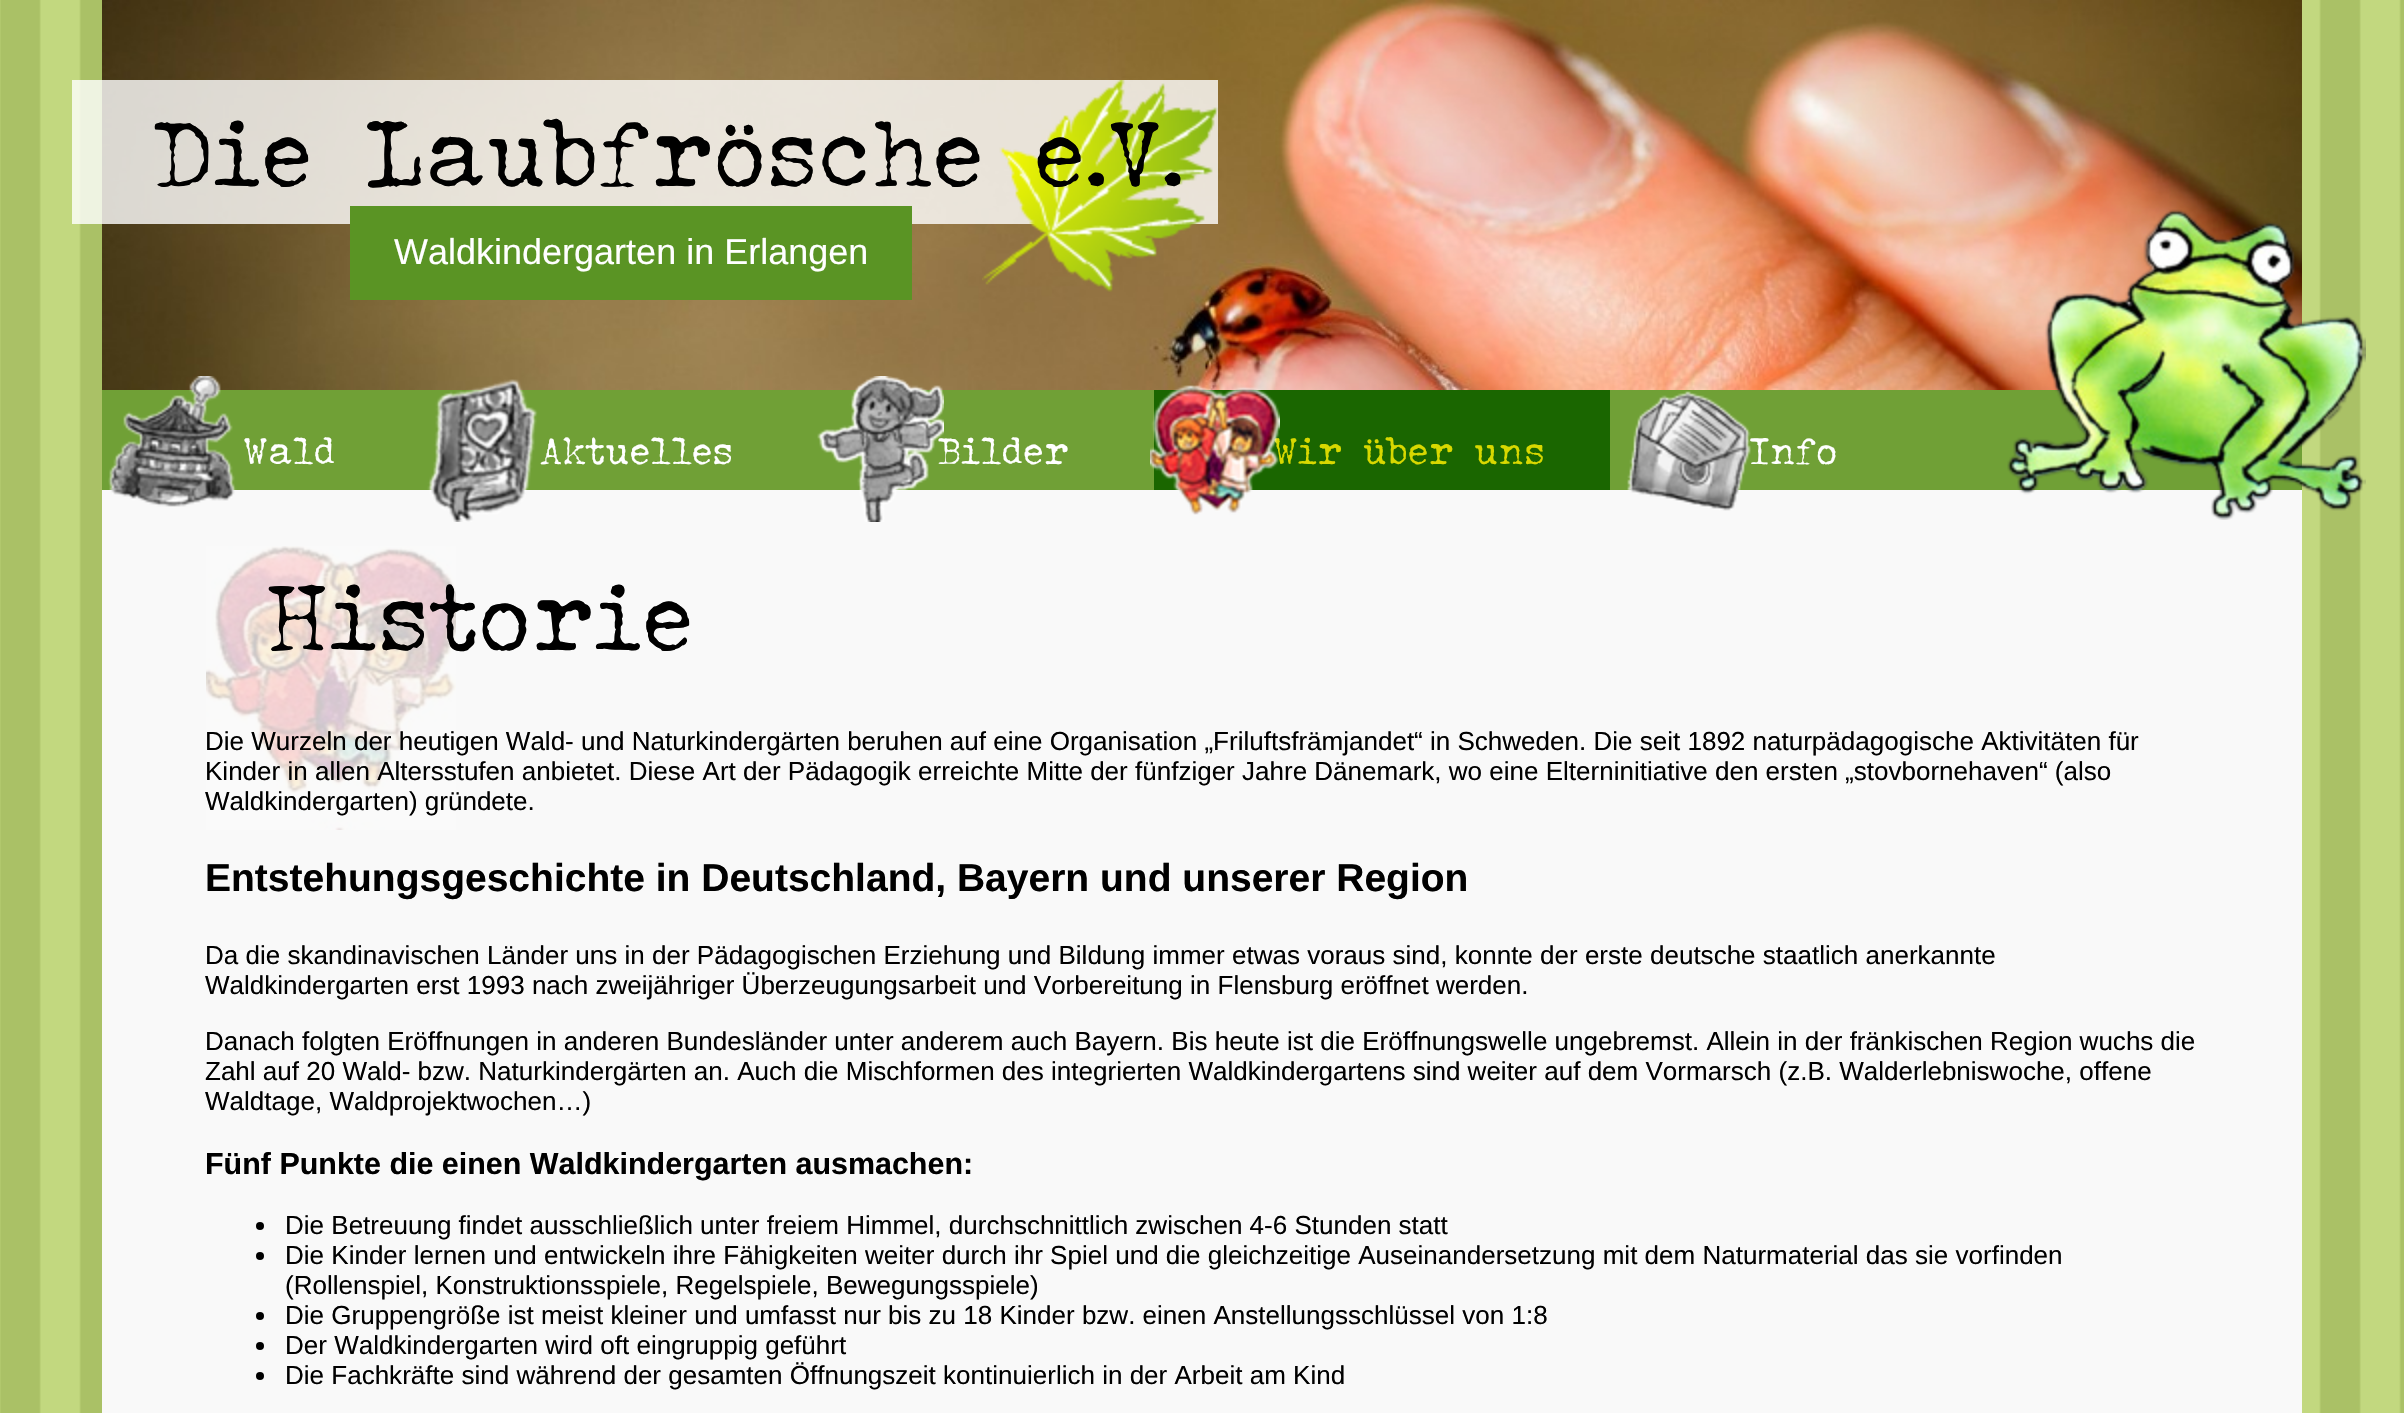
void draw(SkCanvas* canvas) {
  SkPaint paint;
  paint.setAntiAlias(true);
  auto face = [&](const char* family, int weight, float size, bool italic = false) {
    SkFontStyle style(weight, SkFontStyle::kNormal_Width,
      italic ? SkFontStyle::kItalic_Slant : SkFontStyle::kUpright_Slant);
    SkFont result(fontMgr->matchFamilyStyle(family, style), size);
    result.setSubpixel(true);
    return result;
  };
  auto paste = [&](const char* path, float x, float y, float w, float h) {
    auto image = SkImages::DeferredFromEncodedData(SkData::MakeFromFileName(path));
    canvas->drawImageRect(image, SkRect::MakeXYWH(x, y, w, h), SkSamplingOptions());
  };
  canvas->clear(0xffffffff);
  paste("img/1.png", 0, 0, 2404, 1413);
  paste("img/2.png", 102, 0, 2200, 390);
  paint.setColor(0xccffffff);
  canvas->drawRect(SkRect::MakeXYWH(72, 80, 1146, 144), paint);
  paste("img/3.png", 982, 80, 236, 212);
  {
    const struct { float x, y, w, h; SkColor color; } items[] = {
      {350, 206, 562, 94, 0xff5a9424},
      {102, 390, 2200, 100, 0xff70a036},
      {102, 490, 2200, 923, 0xfff9f9f9},
    };
    for (auto [x, y, w, h, color] : items) {
      paint.setColor(color);
      canvas->drawRect(SkRect::MakeXYWH(x, y, w, h), paint);
    }
  }
  paste("img/4.png", 108, 376, 129, 131);
  paste("img/5.png", 427, 379, 111, 143);
  paint.setColor(0xff1a6600);
  canvas->drawRect(SkRect::MakeXYWH(1154, 390, 456, 100), paint);
  paste("img/9.png", 2007, 209, 359, 311);
  paste("img/10.png", 206, 546, 250, 284);
  paint.setColor(0xff000000);
  canvas->drawCircle(260, 1226, 4, paint);
  canvas->drawCircle(260, 1256, 4, paint);
  canvas->drawCircle(260, 1316, 4, paint);
  canvas->drawCircle(260, 1346, 4, paint);
  canvas->drawCircle(260, 1376, 4, paint);
  auto f0 = face("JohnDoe", 400, 89.75f);
  canvas->drawString("Die Laubfrösche e.V.", 151, 186, f0, paint);
  auto f1 = face("Liberation Sans", 400, 36);
  paint.setColor(0xffffffff);
  canvas->drawString("Waldkindergarten in Erlangen", 394, 264, f1, paint);
  auto f2 = face("JohnDoe", 400, 36);
  {
    const struct { const char* s; float x, y; } items[] = {
      {"Wald", 243, 464},
      {"Aktuelles", 540, 464},
      {"Bilder", 937, 464},
    };
    for (auto [s, x, y] : items) {
      canvas->drawString(s, x, y, f2, paint);
    }
  }
  paste("img/6.png", 817, 376, 127, 146);
  paint.setColor(0xffd8d800);
  canvas->drawString("Wir über uns", 1273, 464, f2, paint);
  paste("img/7.png", 1150, 385, 130, 130);
  paint.setColor(0xffffffff);
  canvas->drawString("Info", 1749, 464, f2, paint);
  paste("img/8.png", 1627, 391, 124, 120);
  paint.setColor(0xff000000);
  canvas->drawString("Historie", 265, 650, f0, paint);
  auto f3 = face("Liberation Sans", 400, 26.02f);
  {
    const struct { const char* s; float x, y; } items[] = {
      {"Die Wurzeln der heutigen Wald- und Naturkindergärten beruhen auf eine Organisation „Friluftsfrämjandet“ in Schweden. Die seit 1892 naturpädagogische Aktivitäten für", 205, 750},
      {"Kinder in allen Altersstufen anbietet. Diese Art der Pädagogik erreichte Mitte der fünfziger Jahre Dänemark, wo eine Elterninitiative den ersten „stovbornehaven“ (also", 205, 780},
      {"Waldkindergarten) gründete.", 205, 810},
    };
    for (auto [s, x, y] : items) {
      canvas->drawString(s, x, y, f3, paint);
    }
  }
  auto f4 = face("Liberation Sans", 700, 39);
  canvas->drawString("Entstehungsgeschichte in Deutschland, Bayern und unserer Region", 205, 891, f4, paint);
  {
    const struct { const char* s; float x, y; } items[] = {
      {"Da die skandinavischen Länder uns in der Pädagogischen Erziehung und Bildung immer etwas voraus sind, konnte der erste deutsche staatlich anerkannte", 205, 964},
      {"Waldkindergarten erst 1993 nach zweijähriger Überzeugungsarbeit und Vorbereitung in Flensburg eröffnet werden.", 205, 994},
      {"Danach folgten Eröffnungen in anderen Bundesländer unter anderem auch Bayern. Bis heute ist die Eröffnungswelle ungebremst. Allein in der fränkischen Region wuchs die", 205, 1050},
      {"Zahl auf 20 Wald- bzw. Naturkindergärten an. Auch die Mischformen des integrierten Waldkindergartens sind weiter auf dem Vormarsch (z.B. Walderlebniswoche, offene", 205, 1080},
      {"Waldtage, Waldprojektwochen…)", 205, 1110},
    };
    for (auto [s, x, y] : items) {
      canvas->drawString(s, x, y, f3, paint);
    }
  }
  auto f5 = face("Liberation Sans", 700, 30.45f);
  canvas->drawString("Fünf Punkte die einen Waldkindergarten ausmachen:", 205, 1174, f5, paint);
  {
    const struct { const char* s; float x, y; } items[] = {
      {"Die Betreuung findet ausschließlich unter freiem Himmel, durchschnittlich zwischen 4-6 Stunden statt", 285, 1234},
      {"Die Kinder lernen und entwickeln ihre Fähigkeiten weiter durch ihr Spiel und die gleichzeitige Auseinandersetzung mit dem Naturmaterial das sie vorfinden", 285, 1264},
      {"(Rollenspiel, Konstruktionsspiele, Regelspiele, Bewegungsspiele)", 285, 1294},
      {"Die Gruppengröße ist meist kleiner und umfasst nur bis zu 18 Kinder bzw. einen Anstellungsschlüssel von 1:8", 285, 1324},
      {"Der Waldkindergarten wird oft eingruppig geführt", 285, 1354},
      {"Die Fachkräfte sind während der gesamten Öffnungszeit kontinuierlich in der Arbeit am Kind", 285, 1384},
    };
    for (auto [s, x, y] : items) {
      canvas->drawString(s, x, y, f3, paint);
    }
  }
}
